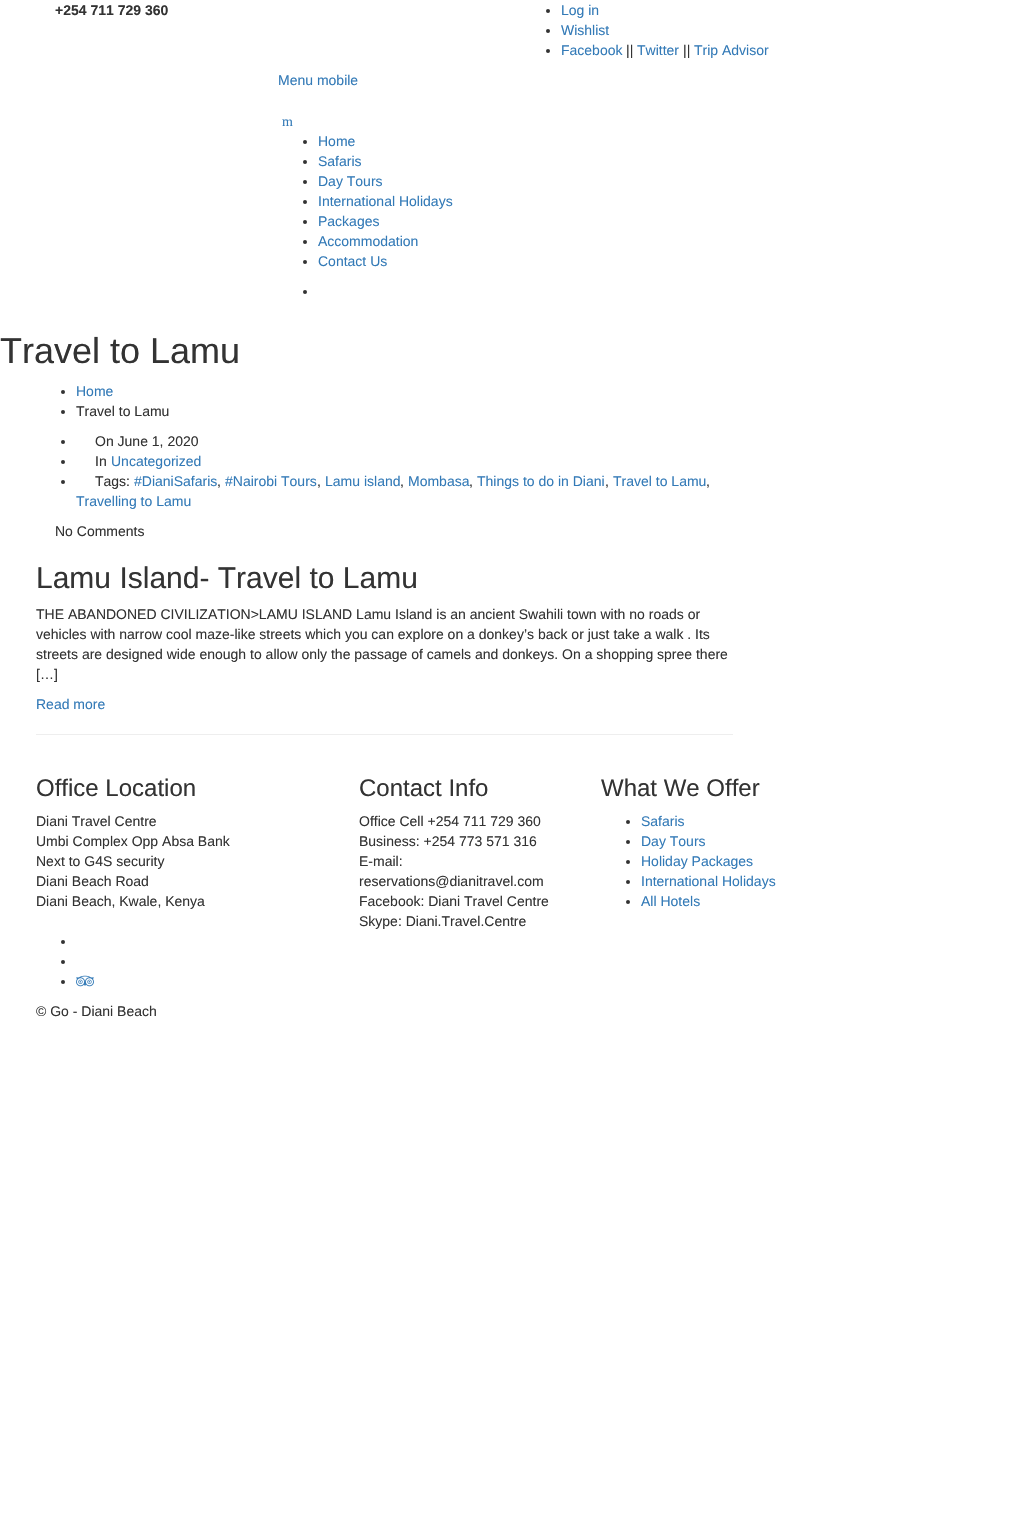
void draw(SkCanvas* canvas) {
  SkPaint paint;
  paint.setAntiAlias(true);
  auto face = [&](const char* family, int weight, float size, bool italic = false) {
    SkFontStyle style(weight, SkFontStyle::kNormal_Width,
      italic ? SkFontStyle::kItalic_Slant : SkFontStyle::kUpright_Slant);
    SkFont result(fontMgr->matchFamilyStyle(family, style), size);
    result.setSubpixel(true);
    return result;
  };
  auto paste = [&](const char* path, float x, float y, float w, float h) {
    auto image = SkImages::DeferredFromEncodedData(SkData::MakeFromFileName(path));
    canvas->drawImageRect(image, SkRect::MakeXYWH(x, y, w, h), SkSamplingOptions());
  };
  canvas->clear(0xffffffff);
  paint.setColor(0xff333333);
  canvas->drawCircle(548, 11, 2, paint);
  canvas->drawCircle(548, 31, 2, paint);
  canvas->drawCircle(548, 51, 2, paint);
  canvas->drawCircle(305, 142, 2, paint);
  canvas->drawCircle(305, 162, 2, paint);
  canvas->drawCircle(305, 182, 2, paint);
  canvas->drawCircle(305, 202, 2, paint);
  canvas->drawCircle(305, 222, 2, paint);
  canvas->drawCircle(305, 242, 2, paint);
  canvas->drawCircle(305, 262, 2, paint);
  canvas->drawCircle(305, 292, 2, paint);
  canvas->drawCircle(63, 392, 2, paint);
  canvas->drawCircle(63, 412, 2, paint);
  canvas->drawCircle(63, 442, 2, paint);
  canvas->drawCircle(63, 462, 2, paint);
  canvas->drawCircle(63, 482, 2, paint);
  paint.setColor(0xffeeeeee);
  canvas->drawRect(SkRect::MakeXYWH(36, 734, 697, 1), paint);
  paint.setColor(0xff333333);
  canvas->drawCircle(628, 822, 2, paint);
  canvas->drawCircle(628, 842, 2, paint);
  canvas->drawCircle(628, 862, 2, paint);
  canvas->drawCircle(628, 882, 2, paint);
  canvas->drawCircle(628, 902, 2, paint);
  canvas->drawCircle(63, 942, 2, paint);
  canvas->drawCircle(63, 962, 2, paint);
  canvas->drawCircle(63, 982, 2, paint);
  paste("img/1.png", 76, 975, 18, 12);
  auto f0 = face("Liberation Sans", 700, 14);
  canvas->drawString("+254 711 729 360", 55, 15, f0, paint);
  auto f1 = face("Liberation Sans", 400, 14);
  paint.setColor(0xff337ab7);
  {
    const struct { const char* s; float x, y; } items[] = {
      {"Log in", 561, 15},
      {"Wishlist", 561, 35},
      {"Facebook", 561, 55},
    };
    for (auto [s, x, y] : items) {
      canvas->drawString(s, x, y, f1, paint);
    }
  }
  paint.setColor(0xff333333);
  canvas->drawString("||", 626, 55, f1, paint);
  paint.setColor(0xff337ab7);
  canvas->drawString("Twitter", 637, 55, f1, paint);
  paint.setColor(0xff333333);
  canvas->drawString("||", 683, 55, f1, paint);
  paint.setColor(0xff337ab7);
  canvas->drawString("Trip Advisor", 694, 55, f1, paint);
  canvas->drawString("Menu mobile", 278, 85, f1, paint);
  auto f2 = face("Liberation Serif", 400, 14);
  canvas->drawString("m", 282, 126, f2, paint);
  {
    const struct { const char* s; float x, y; } items[] = {
      {"Home", 318, 146},
      {"Safaris", 318, 166},
      {"Day Tours", 318, 186},
      {"International Holidays", 318, 206},
      {"Packages", 318, 226},
      {"Accommodation", 318, 246},
      {"Contact Us", 318, 266},
    };
    for (auto [s, x, y] : items) {
      canvas->drawString(s, x, y, f1, paint);
    }
  }
  auto f3 = face("Liberation Sans", 400, 36);
  paint.setColor(0xff333333);
  canvas->drawString("Travel to Lamu", 0, 363, f3, paint);
  paint.setColor(0xff337ab7);
  canvas->drawString("Home", 76, 396, f1, paint);
  paint.setColor(0xff333333);
  {
    const struct { const char* s; float x, y; } items[] = {
      {"Travel to Lamu", 76, 416},
      {"On June 1, 2020", 95, 446},
      {"In", 95, 466},
    };
    for (auto [s, x, y] : items) {
      canvas->drawString(s, x, y, f1, paint);
    }
  }
  paint.setColor(0xff337ab7);
  canvas->drawString("Uncategorized", 111, 466, f1, paint);
  paint.setColor(0xff333333);
  canvas->drawString("Tags:", 95, 486, f1, paint);
  paint.setColor(0xff337ab7);
  {
    const struct { const char* s; float x, y; } items[] = {
      {"#DianiSafaris", 134, 486},
      {"#Nairobi Tours", 225, 486},
      {"Lamu island", 325, 486},
      {"Mombasa", 408, 486},
      {"Things to do in Diani", 477, 486},
      {"Travel to Lamu", 613, 486},
    };
    for (auto [s, x, y] : items) {
      canvas->drawString(s, x, y, f1, paint);
    }
  }
  paint.setColor(0xff333333);
  {
    const struct { const char* s; float x, y; } items[] = {
      {",", 217, 486},
      {",", 317, 486},
      {",", 400, 486},
      {",", 469, 486},
      {",", 605, 486},
      {",", 706, 486},
    };
    for (auto [s, x, y] : items) {
      canvas->drawString(s, x, y, f1, paint);
    }
  }
  paint.setColor(0xff337ab7);
  canvas->drawString("Travelling to Lamu", 76, 506, f1, paint);
  paint.setColor(0xff333333);
  canvas->drawString("No Comments", 55, 536, f1, paint);
  auto f4 = face("Liberation Sans", 400, 30);
  canvas->drawString("Lamu Island- Travel to Lamu", 36, 588, f4, paint);
  {
    const struct { const char* s; float x, y; } items[] = {
      {"THE ABANDONED CIVILIZATION>LAMU ISLAND Lamu Island is an ancient Swahili town with no roads or", 36, 619},
      {"vehicles with narrow cool maze-like streets which you can explore on a donkey’s back or just take a walk . Its", 36, 639},
      {"streets are designed wide enough to allow only the passage of camels and donkeys. On a shopping spree there", 36, 659},
      {"[…]", 36, 679},
    };
    for (auto [s, x, y] : items) {
      canvas->drawString(s, x, y, f1, paint);
    }
  }
  paint.setColor(0xff337ab7);
  canvas->drawString("Read more", 36, 709, f1, paint);
  auto f5 = face("Liberation Sans", 400, 24);
  paint.setColor(0xff333333);
  canvas->drawString("Office Location", 36, 796, f5, paint);
  {
    const struct { const char* s; float x, y; } items[] = {
      {"Diani Travel Centre", 36, 826},
      {"Umbi Complex Opp Absa Bank", 36, 846},
      {"Next to G4S security", 36, 866},
      {"Diani Beach Road", 36, 886},
      {"Diani Beach, Kwale, Kenya", 36, 906},
    };
    for (auto [s, x, y] : items) {
      canvas->drawString(s, x, y, f1, paint);
    }
  }
  canvas->drawString("Contact Info", 359, 796, f5, paint);
  {
    const struct { const char* s; float x, y; } items[] = {
      {"Office Cell +254 711 729 360", 359, 826},
      {"Business: +254 773 571 316", 359, 846},
      {"E-mail:", 359, 866},
      {"reservations@dianitravel.com", 359, 886},
      {"Facebook: Diani Travel Centre", 359, 906},
      {"Skype: Diani.Travel.Centre", 359, 926},
    };
    for (auto [s, x, y] : items) {
      canvas->drawString(s, x, y, f1, paint);
    }
  }
  canvas->drawString("What We Offer", 601, 796, f5, paint);
  paint.setColor(0xff337ab7);
  {
    const struct { const char* s; float x, y; } items[] = {
      {"Safaris", 641, 826},
      {"Day Tours", 641, 846},
      {"Holiday Packages", 641, 866},
      {"International Holidays", 641, 886},
      {"All Hotels", 641, 906},
    };
    for (auto [s, x, y] : items) {
      canvas->drawString(s, x, y, f1, paint);
    }
  }
  paint.setColor(0xff333333);
  canvas->drawString("© Go - Diani Beach", 36, 1016, f1, paint);
}
